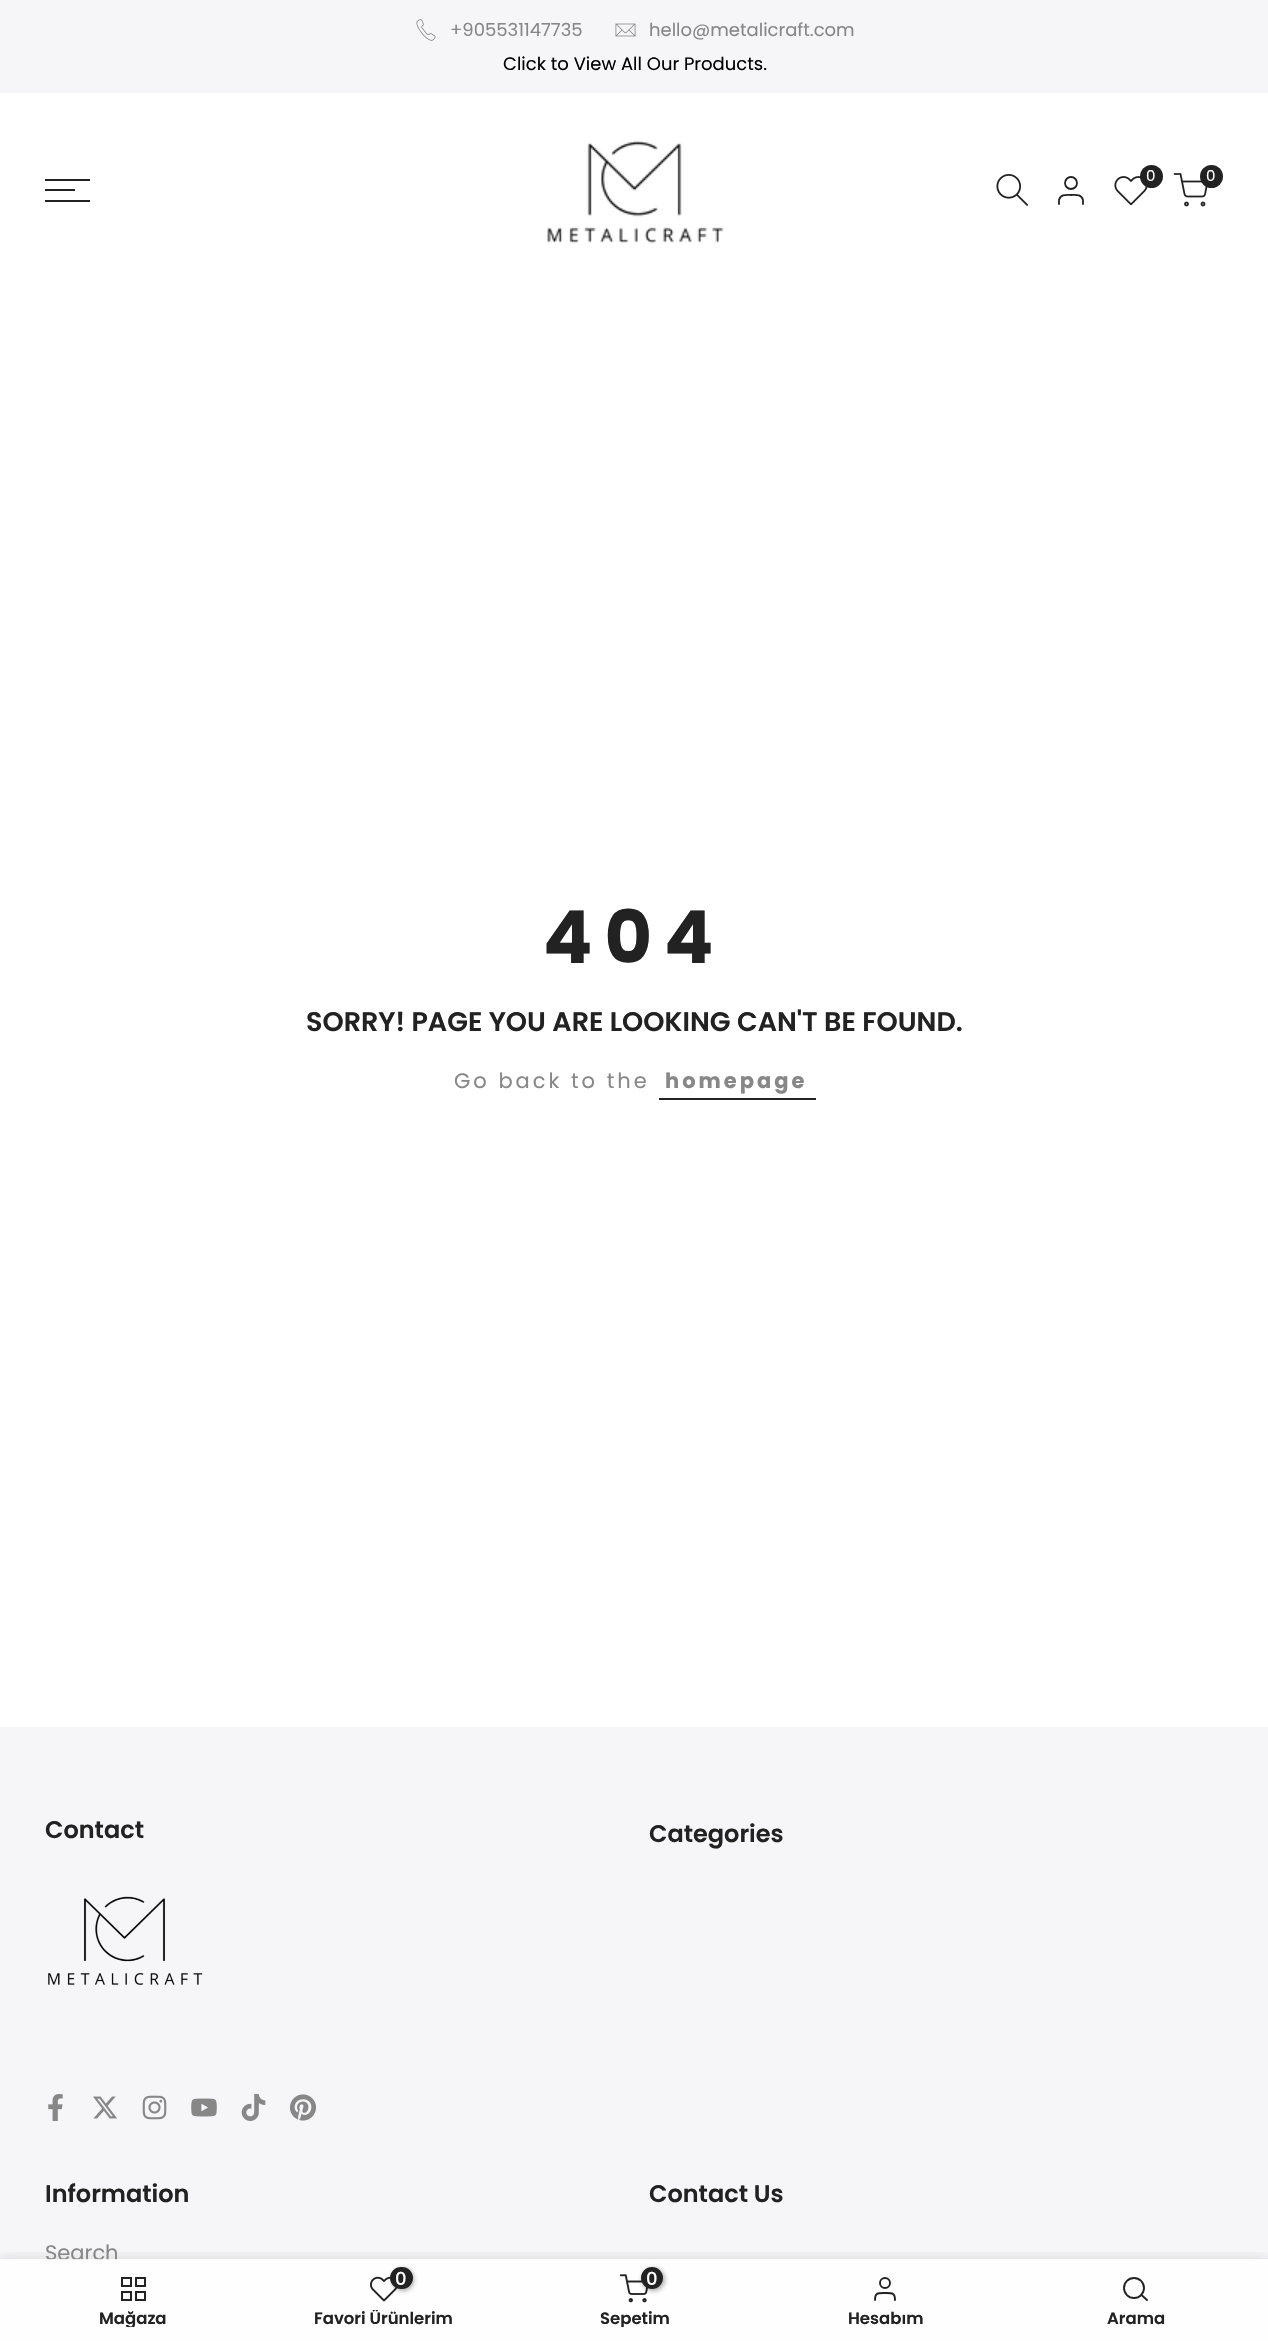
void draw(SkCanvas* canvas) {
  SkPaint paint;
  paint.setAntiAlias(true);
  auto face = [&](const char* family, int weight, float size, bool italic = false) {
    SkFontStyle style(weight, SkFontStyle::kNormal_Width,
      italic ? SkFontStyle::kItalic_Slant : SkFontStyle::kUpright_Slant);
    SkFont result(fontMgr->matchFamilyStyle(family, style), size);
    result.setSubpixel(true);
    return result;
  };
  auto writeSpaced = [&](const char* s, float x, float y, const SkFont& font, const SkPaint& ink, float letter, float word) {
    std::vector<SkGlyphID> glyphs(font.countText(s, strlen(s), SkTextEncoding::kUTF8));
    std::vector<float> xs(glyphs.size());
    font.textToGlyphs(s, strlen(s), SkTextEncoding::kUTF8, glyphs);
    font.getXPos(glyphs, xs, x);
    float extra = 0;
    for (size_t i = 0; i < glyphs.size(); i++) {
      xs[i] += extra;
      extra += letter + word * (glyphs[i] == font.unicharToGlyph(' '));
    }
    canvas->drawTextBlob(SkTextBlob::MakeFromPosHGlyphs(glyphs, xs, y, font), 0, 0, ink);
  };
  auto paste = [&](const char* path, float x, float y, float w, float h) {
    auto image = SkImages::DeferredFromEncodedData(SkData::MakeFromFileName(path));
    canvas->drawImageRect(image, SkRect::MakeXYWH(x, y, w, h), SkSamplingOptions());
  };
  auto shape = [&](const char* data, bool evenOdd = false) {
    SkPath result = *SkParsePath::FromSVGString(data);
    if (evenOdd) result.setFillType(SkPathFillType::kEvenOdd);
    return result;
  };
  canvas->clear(0xffffffff);
  paint.setColor(0xfff6f6f8);
  canvas->drawRect(SkRect::MakeXYWH(0, 0, 1268, 93), paint);
  paste("img/1.png", 416, 19, 20, 22);
  paste("img/2.png", 615, 23, 21, 14);
  paste("img/3.png", 547, 140, 177, 104);
  paste("img/4.png", 996, 174, 32, 32);
  paint.setStroke(true);
  paint.setStrokeWidth(1.8f);
  paint.setStrokeCap(SkPaint::kRound_Cap);
  paint.setStrokeJoin(SkPaint::kRound_Join);
  paint.setColor(0xff222222);
  canvas->drawPath(shape("M1083 204V200C1081.5 194 1075.5 195 1071 195C1066.5 195 1060.5 194 1059 200V204"), paint);
  paint.setStrokeCap(SkPaint::kButt_Cap);
  paint.setStrokeJoin(SkPaint::kMiter_Join);
  canvas->drawCircle(1071, 183, 6, paint);
  paste("img/5.png", 1114, 176, 34, 30);
  paint.setStroke(false);
  canvas->drawCircle(1151.5f, 176.5f, 11.5f, paint);
  paste("img/6.png", 1173, 173, 35, 34);
  canvas->drawCircle(1211.5f, 176.5f, 11.5f, paint);
  {
    const struct { float x, y, w, h; SkColor color; } items[] = {
      {45, 179, 45, 2, 0xff222222},
      {45, 189, 30, 2, 0xff222222},
      {45, 200, 45, 2, 0xff222222},
      {659, 1098, 157, 2, 0xff222222},
      {0, 1727, 1268, 614, 0xfff6f6f8},
    };
    for (auto [x, y, w, h, color] : items) {
      paint.setColor(color);
      canvas->drawRect(SkRect::MakeXYWH(x, y, w, h), paint);
    }
  }
  paste("img/7.png", 48, 1896, 155, 89);
  paste("img/8.png", 48, 2094, 15, 27);
  paste("img/9.png", 93, 2096, 24, 23);
  paste("img/10.png", 142, 2095, 25, 25);
  paste("img/11.png", 191, 2098, 26, 19);
  paste("img/12.png", 241, 2094, 25, 27);
  paste("img/13.png", 290, 2094, 27, 27);
  canvas->save();
  canvas->clipRect(SkRect::MakeXYWH(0, 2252, 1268, 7));
  paint.setColor(0x1f000000);
  paint.setMaskFilter(SkMaskFilter::MakeBlur(kNormal_SkBlurStyle, 7));
  canvas->drawRect(SkRect::MakeXYWH(0, 2259, 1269, 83), paint);
  paint.setMaskFilter(nullptr);
  canvas->restore();
  auto f0 = face("Poppins", 400, 18);
  paint.setColor(0xff878787);
  canvas->drawString("+905531147735", 450, 36, f0, paint);
  canvas->drawString("hello@metalicraft.com", 649, 36, f0, paint);
  paint.setColor(0xff000000);
  canvas->drawString("Click to View All Our Products.", 503, 70, f0, paint);
  auto f1 = face("Poppins", 400, 15);
  paint.setColor(0xffffffff);
  canvas->drawString("0", 1146, 181, f1, paint);
  canvas->drawString("0", 1206, 181, f1, paint);
  auto f2 = face("Poppins", 700, 73);
  paint.setColor(0xff222222);
  writeSpaced("404", 543, 963, f2, paint, 12, 0);
  auto f3 = face("Poppins", 600, 27);
  canvas->drawString("SORRY! PAGE YOU ARE LOOKING CAN'T BE FOUND.", 306, 1031, f3, paint);
  auto f4 = face("Poppins", 400, 21);
  paint.setColor(0xff878787);
  writeSpaced("Go back to the", 454, 1088, f4, paint, 3, 0);
  auto f5 = face("Poppins", 700, 21);
  writeSpaced("homepage", 665, 1088, f5, paint, 3, 0);
  auto f6 = face("Poppins", 600, 24);
  paint.setColor(0xff222222);
  {
    const struct { const char* s; float x, y; } items[] = {
      {"Contact", 45, 1838},
      {"Categories", 649, 1842},
      {"Information", 45, 2202},
    };
    for (auto [s, x, y] : items) {
      canvas->drawString(s, x, y, f6, paint);
    }
  }
  paint.setColor(0xff878787);
  canvas->drawString("Search", 45, 2260, f4, paint);
  paint.setColor(0xff222222);
  canvas->drawString("Contact Us", 649, 2202, f6, paint);
  paint.setColor(0xccffffff);
  canvas->drawRect(SkRect::MakeXYWH(0, 2259, 1268, 82), paint);
  paint.setStroke(true);
  paint.setStrokeWidth(2);
  paint.setColor(0xff222222);
  canvas->drawRect(SkRect::MakeXYWH(122, 2278, 9, 8), paint);
  canvas->drawRect(SkRect::MakeXYWH(136, 2278, 9, 8), paint);
  canvas->drawRect(SkRect::MakeXYWH(136, 2292, 9, 8), paint);
  canvas->drawRect(SkRect::MakeXYWH(122, 2292, 9, 8), paint);
  canvas->save();
  canvas->clipRect(SkRect::MakeXYWH(23, 2310, 220, 17));
  auto f7 = face("Poppins", 600, 16.5f);
  paint.setStroke(false);
  canvas->drawString("Mağaza", 99, 2324, f7, paint);
  canvas->restore();
  paste("img/14.png", 370, 2276, 28, 26);
  paint.setColor(0x4d000000);
  paint.setMaskFilter(SkMaskFilter::MakeBlur(kNormal_SkBlurStyle, 2));
  canvas->drawRoundRect(SkRect::MakeXYWH(392, 2268, 22, 23), 11, 11, paint);
  paint.setMaskFilter(nullptr);
  paint.setColor(0xff222222);
  canvas->drawRoundRect(SkRect::MakeXYWH(390, 2267, 23, 22), 11, 11, paint);
  auto f8 = face("Poppins", 500, 18);
  paint.setColor(0xffffffff);
  canvas->drawString("0", 395, 2285, f8, paint);
  canvas->save();
  canvas->clipRect(SkRect::MakeXYWH(273, 2310, 221, 17));
  paint.setColor(0xff222222);
  canvas->drawString("Favori Ürünlerim", 314, 2324, f7, paint);
  canvas->restore();
  paste("img/15.png", 620, 2274, 28, 29);
  paint.setColor(0x4d000000);
  paint.setMaskFilter(SkMaskFilter::MakeBlur(kNormal_SkBlurStyle, 2));
  canvas->drawRoundRect(SkRect::MakeXYWH(642, 2268, 23, 23), 11.5f, 11.5f, paint);
  paint.setMaskFilter(nullptr);
  paint.setColor(0xff222222);
  canvas->drawCircle(652, 2278, 11, paint);
  paint.setColor(0xffffffff);
  canvas->drawString("0", 646, 2285, f8, paint);
  canvas->save();
  canvas->clipRect(SkRect::MakeXYWH(524, 2310, 222, 17));
  paint.setColor(0xff222222);
  canvas->drawString("Sepetim", 600, 2324, f7, paint);
  canvas->restore();
  paint.setStroke(true);
  paint.setStrokeWidth(1.9f);
  paint.setStrokeCap(SkPaint::kRound_Cap);
  paint.setStrokeJoin(SkPaint::kRound_Join);
  canvas->drawPath(shape("M895 2300C895 2292.5 892 2293 885 2293C878 2293 875 2292.5 875 2300"), paint);
  paint.setStrokeCap(SkPaint::kButt_Cap);
  paint.setStrokeJoin(SkPaint::kMiter_Join);
  canvas->drawCircle(885, 2283, 5, paint);
  paint.setStroke(false);
  canvas->drawString("Hesabım", 848, 2324, f7, paint);
  paint.setStroke(true);
  canvas->drawCircle(1134, 2288, 10, paint);
  paint.setStrokeCap(SkPaint::kRound_Cap);
  paint.setStrokeJoin(SkPaint::kRound_Join);
  canvas->drawPath(shape("M1147 2300L1141.5 2295"), paint);
  paint.setStroke(false);
  canvas->drawString("Arama", 1107, 2324, f7, paint);
}
